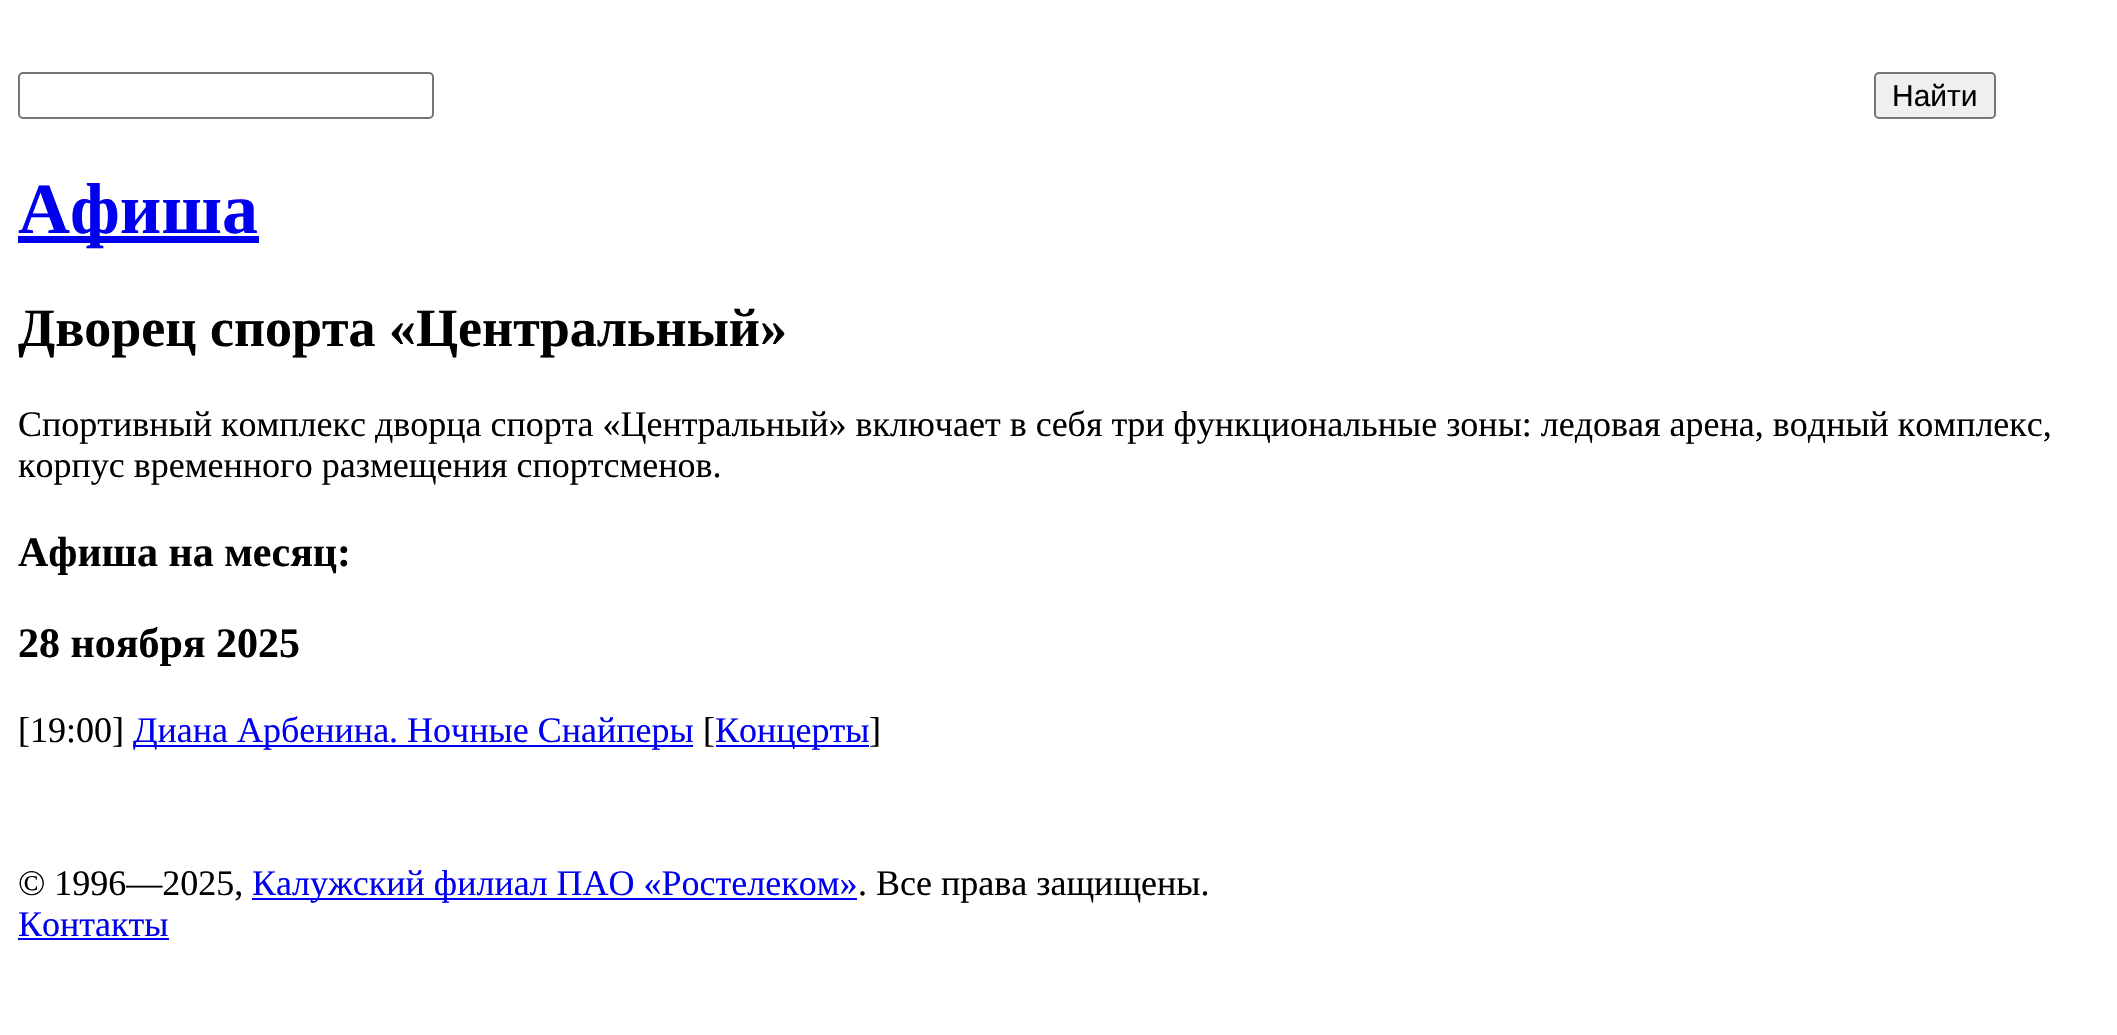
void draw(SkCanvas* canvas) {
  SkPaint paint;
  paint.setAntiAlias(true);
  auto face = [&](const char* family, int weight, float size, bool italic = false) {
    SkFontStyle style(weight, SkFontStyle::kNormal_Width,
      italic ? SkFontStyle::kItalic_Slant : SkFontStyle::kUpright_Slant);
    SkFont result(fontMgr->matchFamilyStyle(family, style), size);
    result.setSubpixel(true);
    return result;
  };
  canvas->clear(0xffffffff);
  paint.setStroke(true);
  paint.setStrokeWidth(2);
  paint.setColor(0xff767676);
  canvas->drawRoundRect(SkRect::MakeXYWH(19, 73, 414, 45), 4, 4, paint);
  paint.setStroke(false);
  paint.setColor(0xffefefef);
  canvas->drawRoundRect(SkRect::MakeXYWH(1875, 73, 120, 45), 4, 4, paint);
  paint.setStroke(true);
  paint.setColor(0xff767676);
  canvas->drawRoundRect(SkRect::MakeXYWH(1875, 73, 120, 45), 4, 4, paint);
  paint.setStroke(false);
  {
    const struct { float x, y, w, h; SkColor color; } items[] = {
      {18, 236, 241, 7, 0xff0000ee},
      {133, 745, 560, 2, 0xff0000ee},
      {716, 745, 153, 2, 0xff0000ee},
      {252, 898, 605, 2, 0xff0000ee},
      {18, 938, 151, 2, 0xff0000ee},
    };
    for (auto [x, y, w, h, color] : items) {
      paint.setColor(color);
      canvas->drawRect(SkRect::MakeXYWH(x, y, w, h), paint);
    }
  }
  auto f0 = face("Liberation Sans", 400, 30);
  paint.setColor(0xff000000);
  canvas->drawString("Найти", 1892, 106, f0, paint);
  auto f1 = face("Liberation Serif", 700, 72);
  paint.setColor(0xff0000ee);
  canvas->drawString("Афиша", 18, 233, f1, paint);
  auto f2 = face("Liberation Serif", 700, 54);
  paint.setColor(0xff000000);
  canvas->drawString("Дворец спорта «Центральный»", 18, 346, f2, paint);
  auto f3 = face("Liberation Serif", 400, 36);
  canvas->drawString("Спортивный комплекс дворца спорта «Центральный» включает в себя три функциональные зоны: ледовая арена, водный комплекс,", 18, 436, f3, paint);
  canvas->drawString("корпус временного размещения спортсменов.", 18, 477, f3, paint);
  auto f4 = face("Liberation Serif", 700, 42);
  canvas->drawString("Афиша на месяц:", 18, 566, f4, paint);
  canvas->drawString("28 ноября 2025", 18, 657, f4, paint);
  canvas->drawString("[19:00]", 18, 742, f3, paint);
  paint.setColor(0xff0000ee);
  canvas->drawString("Диана Арбенина. Ночные Снайперы", 133, 742, f3, paint);
  paint.setColor(0xff000000);
  canvas->drawString("[", 703, 742, f3, paint);
  paint.setColor(0xff0000ee);
  canvas->drawString("Концерты", 715, 742, f3, paint);
  paint.setColor(0xff000000);
  canvas->drawString("]", 869, 742, f3, paint);
  canvas->drawString("© 1996—2025,", 18, 895, f3, paint);
  paint.setColor(0xff0000ee);
  canvas->drawString("Калужский филиал ПАО «Ростелеком»", 252, 895, f3, paint);
  paint.setColor(0xff000000);
  canvas->drawString(". Все права защищены.", 858, 895, f3, paint);
  paint.setColor(0xff0000ee);
  canvas->drawString("Контакты", 18, 936, f3, paint);
}
